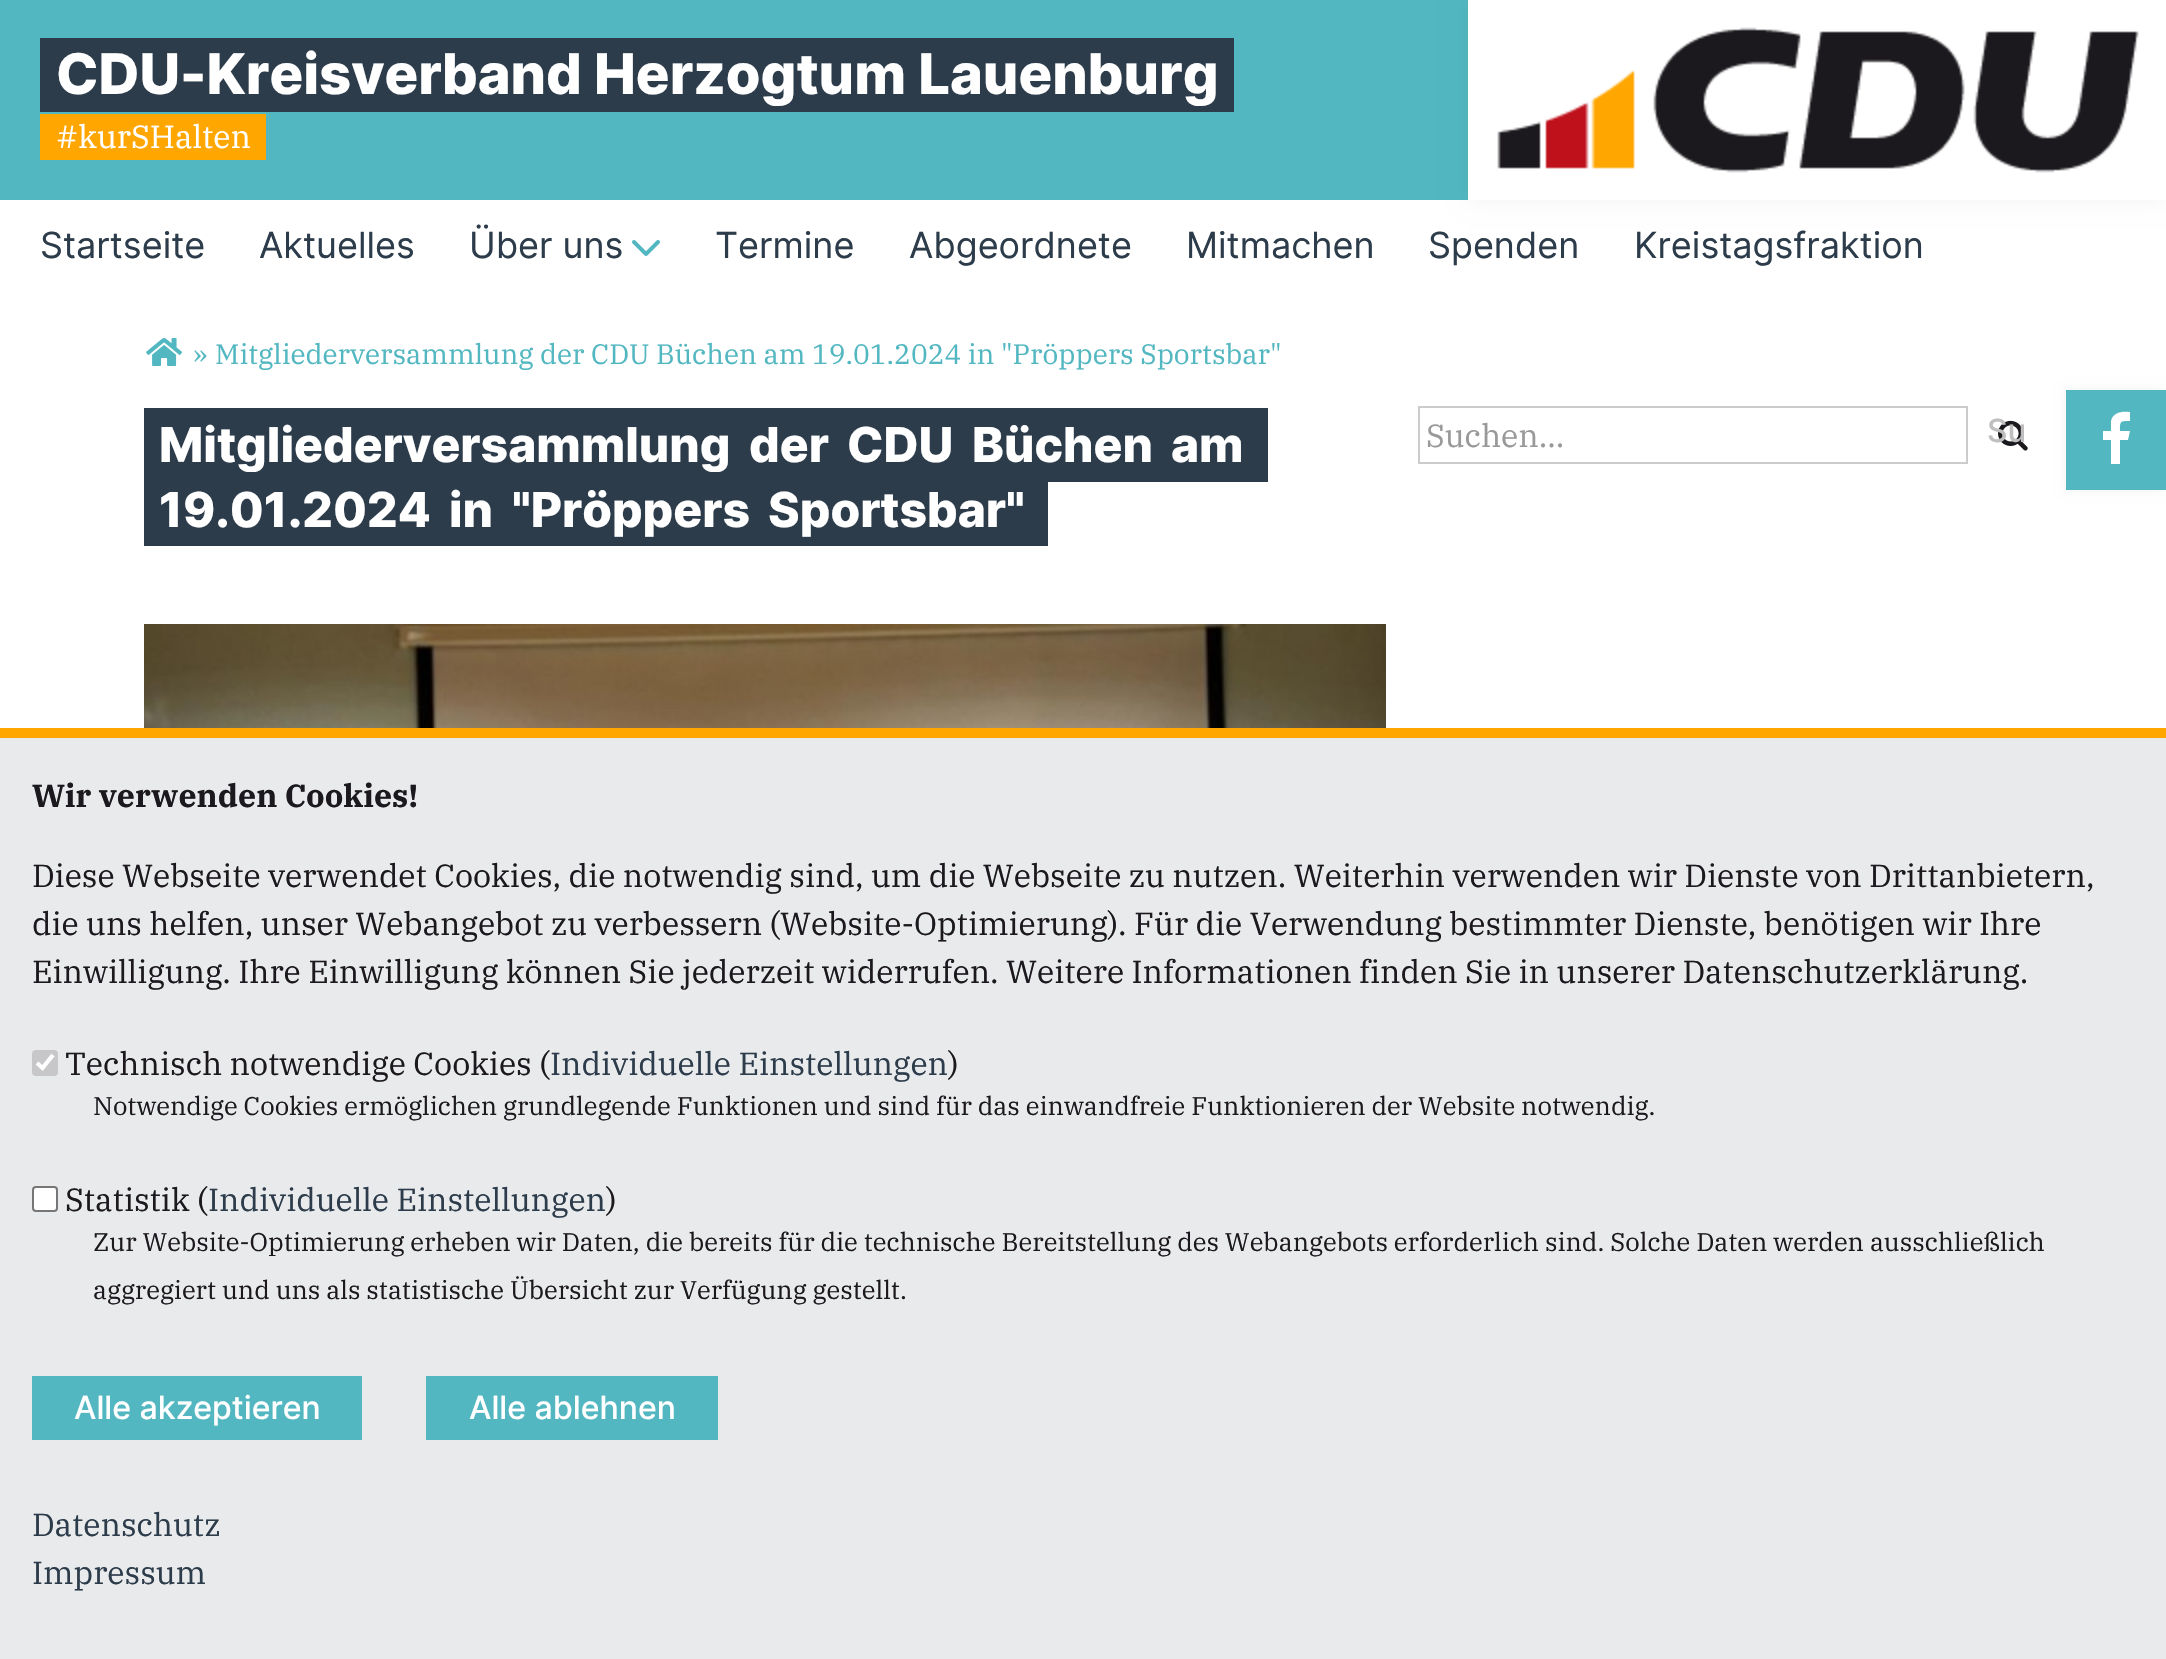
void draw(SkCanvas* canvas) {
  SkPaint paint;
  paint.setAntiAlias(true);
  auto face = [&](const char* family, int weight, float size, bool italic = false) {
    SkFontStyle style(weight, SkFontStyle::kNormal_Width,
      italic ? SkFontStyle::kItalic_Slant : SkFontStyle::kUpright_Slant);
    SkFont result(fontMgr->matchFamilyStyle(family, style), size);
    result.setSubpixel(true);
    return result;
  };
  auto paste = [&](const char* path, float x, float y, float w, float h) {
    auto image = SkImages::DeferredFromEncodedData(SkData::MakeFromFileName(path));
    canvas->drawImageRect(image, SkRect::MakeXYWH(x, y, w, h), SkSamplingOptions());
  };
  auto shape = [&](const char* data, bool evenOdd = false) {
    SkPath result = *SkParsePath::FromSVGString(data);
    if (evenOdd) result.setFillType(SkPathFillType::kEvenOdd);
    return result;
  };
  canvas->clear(0xffffffff);
  {
    const struct { float x, y, w, h; SkColor color; } items[] = {
      {0, 0, 1468, 200, 0xff52b7c1},
      {40, 38, 1194, 74, 0xff2d3c4b},
      {40, 114, 226, 46, 0xffffa600},
    };
    for (auto [x, y, w, h, color] : items) {
      paint.setColor(color);
      canvas->drawRect(SkRect::MakeXYWH(x, y, w, h), paint);
    }
  }
  paint.setColor(0x0d000000);
  paint.setMaskFilter(SkMaskFilter::MakeBlur(kNormal_SkBlurStyle, 10));
  canvas->drawRect(SkRect::MakeXYWH(1468, 0, 698, 200), paint);
  paint.setMaskFilter(nullptr);
  paste("img/1.png", 1468, 0, 698, 200);
  paste("img/2.png", 632, 240, 28, 16);
  paste("img/3.png", 146, 338, 36, 28);
  {
    const struct { float x, y, w, h; SkColor color; } items[] = {
      {144, 408, 828, 64, 0xff2d3c4b},
      {972, 408, 200, 74, 0xff2d3c4b},
      {1172, 408, 96, 74, 0xff2d3c4b},
      {1032, 482, 16, 64, 0xff2d3c4b},
    };
    for (auto [x, y, w, h, color] : items) {
      paint.setColor(color);
      canvas->drawRect(SkRect::MakeXYWH(x, y, w, h), paint);
    }
  }
  paste("img/4.png", 144, 624, 1242, 104);
  paint.setStroke(true);
  paint.setStrokeWidth(2);
  paint.setColor(0xffcccccc);
  canvas->drawRect(SkRect::MakeXYWH(1419, 407, 548, 56), paint);
  paste("img/5.png", 1998, 420, 30, 31);
  paint.setStroke(false);
  paint.setColor(0x0d000000);
  paint.setMaskFilter(SkMaskFilter::MakeBlur(kNormal_SkBlurStyle, 5));
  canvas->drawRect(SkRect::MakeXYWH(2066, 390, 100, 100), paint);
  paint.setMaskFilter(nullptr);
  paint.setColor(0xff52b7c1);
  canvas->drawRect(SkRect::MakeXYWH(2066, 390, 100, 100), paint);
  paint.setColor(0xffffffff);
  canvas->drawPath(shape("M2130 412V421C2120 421 2120 421 2120 431H2130L2128 440H2120V464H2111V440H2103V431H2111V421C2113 412 2122 411 2130 412Z"), paint);
  paint.setColor(0xffe9eaec);
  canvas->drawRect(SkRect::MakeXYWH(0, 738, 2166, 921), paint);
  paint.setColor(0xffffa600);
  canvas->drawRect(SkRect::MakeXYWH(0, 728, 2166, 10), paint);
  paint.setColor(0xffc7c7c9);
  canvas->drawRoundRect(SkRect::MakeXYWH(32, 1050, 26, 26), 4, 4, paint);
  paint.setStroke(true);
  paint.setStrokeWidth(4.2f);
  paint.setColor(0xffffffff);
  canvas->drawPath(shape("M37 1063L42.5 1068L53 1055"), paint);
  paint.setStroke(false);
  canvas->drawRoundRect(SkRect::MakeXYWH(33, 1187, 24, 24), 3, 3, paint);
  paint.setStroke(true);
  paint.setStrokeWidth(2);
  paint.setColor(0xff767676);
  canvas->drawRoundRect(SkRect::MakeXYWH(33, 1187, 24, 24), 3, 3, paint);
  paint.setStroke(false);
  paint.setColor(0xff52b7c1);
  canvas->drawRect(SkRect::MakeXYWH(32, 1376, 330, 64), paint);
  canvas->drawRect(SkRect::MakeXYWH(426, 1376, 292, 64), paint);
  auto f0 = face("Inter", 800, 56);
  paint.setColor(0xffffffff);
  canvas->drawString("CDU-Kreisverband Herzogtum Lauenburg", 56, 94, f0, paint);
  auto f1 = face("IBM Plex Serif", 400, 32);
  canvas->drawString("#kurSHalten", 56, 148, f1, paint);
  auto f2 = face("Inter", 400, 36);
  paint.setColor(0xff2d3c4b);
  {
    const struct { const char* s; float x, y; } items[] = {
      {"Startseite", 40, 258},
      {"Aktuelles", 259, 258},
      {"Über uns", 469, 258},
      {"Termine", 715, 258},
      {"Abgeordnete", 909, 258},
      {"Mitmachen", 1186, 258},
      {"Spenden", 1428, 258},
      {"Kreistagsfraktion", 1634, 258},
    };
    for (auto [s, x, y] : items) {
      canvas->drawString(s, x, y, f2, paint);
    }
  }
  auto f3 = face("IBM Plex Serif", 400, 28);
  paint.setColor(0xff52b7c1);
  canvas->drawString("»", 193, 364, f3, paint);
  canvas->drawString("Mitgliederversammlung der CDU Büchen am 19.01.2024 in \"Pröppers Sportsbar\"", 215, 364, f3, paint);
  auto f4 = face("Inter", 800, 48);
  paint.setColor(0xffffffff);
  {
    const struct { const char* s; float x, y; } items[] = {
      {"Mitgliederversammlung", 159, 462},
      {"der", 749, 462},
      {"CDU", 847, 462},
      {"Büchen", 972, 462},
      {"am", 1171, 462},
    };
    for (auto [s, x, y] : items) {
      canvas->drawString(s, x, y, f4, paint);
    }
  }
  paint.setColor(0xff2d3c4b);
  canvas->drawRect(SkRect::MakeXYWH(144, 472, 888, 74), paint);
  paint.setColor(0xffffffff);
  {
    const struct { const char* s; float x, y; } items[] = {
      {"19.01.2024", 159, 527},
      {"in", 449, 527},
      {"\"Pröppers", 512, 527},
      {"Sportsbar\"", 768, 527},
    };
    for (auto [s, x, y] : items) {
      canvas->drawString(s, x, y, f4, paint);
    }
  }
  paint.setColor(0xff999999);
  canvas->drawString("Suchen...", 1426, 447, f1, paint);
  canvas->save();
  canvas->clipRect(SkRect::MakeXYWH(1988, 406, 36, 44));
  auto f5 = face("Inter", 500, 32);
  paint.setColor(0xffbfbfc0);
  canvas->drawString("Su", 1987, 442, f5, paint);
  canvas->restore();
  auto f6 = face("IBM Plex Serif", 700, 32);
  paint.setColor(0xff1b191d);
  canvas->drawString("Wir verwenden Cookies!", 32, 807, f6, paint);
  {
    const struct { const char* s; float x, y; } items[] = {
      {"Diese Webseite verwendet Cookies, die notwendig sind, um die Webseite zu nutzen. Weiterhin verwenden wir Dienste von Drittanbietern,", 32, 887},
      {"die uns helfen, unser Webangebot zu verbessern (Website-Optimierung). Für die Verwendung bestimmter Dienste, benötigen wir Ihre", 32, 935},
      {"Einwilligung. Ihre Einwilligung können Sie jederzeit widerrufen. Weitere Informationen finden Sie in unserer Datenschutzerklärung.", 32, 983},
      {"Technisch notwendige Cookies (", 65, 1075},
    };
    for (auto [s, x, y] : items) {
      canvas->drawString(s, x, y, f1, paint);
    }
  }
  paint.setColor(0xff2d3c4b);
  canvas->drawString("Individuelle Einstellungen", 550, 1075, f1, paint);
  paint.setColor(0xff1b191d);
  canvas->drawString(")", 948, 1075, f1, paint);
  auto f7 = face("IBM Plex Serif", 400, 25.6f);
  canvas->drawString("Notwendige Cookies ermöglichen grundlegende Funktionen und sind für das einwandfreie Funktionieren der Website notwendig.", 93, 1115, f7, paint);
  canvas->drawString("Statistik (", 65, 1211, f1, paint);
  paint.setColor(0xff2d3c4b);
  canvas->drawString("Individuelle Einstellungen", 208, 1211, f1, paint);
  paint.setColor(0xff1b191d);
  canvas->drawString(")", 606, 1211, f1, paint);
  canvas->drawString("Zur Website-Optimierung erheben wir Daten, die bereits für die technische Bereitstellung des Webangebots erforderlich sind. Solche Daten werden ausschließlich", 93, 1251, f7, paint);
  canvas->drawString("aggregiert und uns als statistische Übersicht zur Verfügung gestellt.", 93, 1299, f7, paint);
  paint.setColor(0xffffffff);
  canvas->drawString("Alle akzeptieren", 74, 1419, f5, paint);
  canvas->drawString("Alle ablehnen", 469, 1419, f5, paint);
  paint.setColor(0xff2d3c4b);
  canvas->drawString("Datenschutz", 32, 1536, f1, paint);
  canvas->drawString("Impressum", 32, 1584, f1, paint);
}
